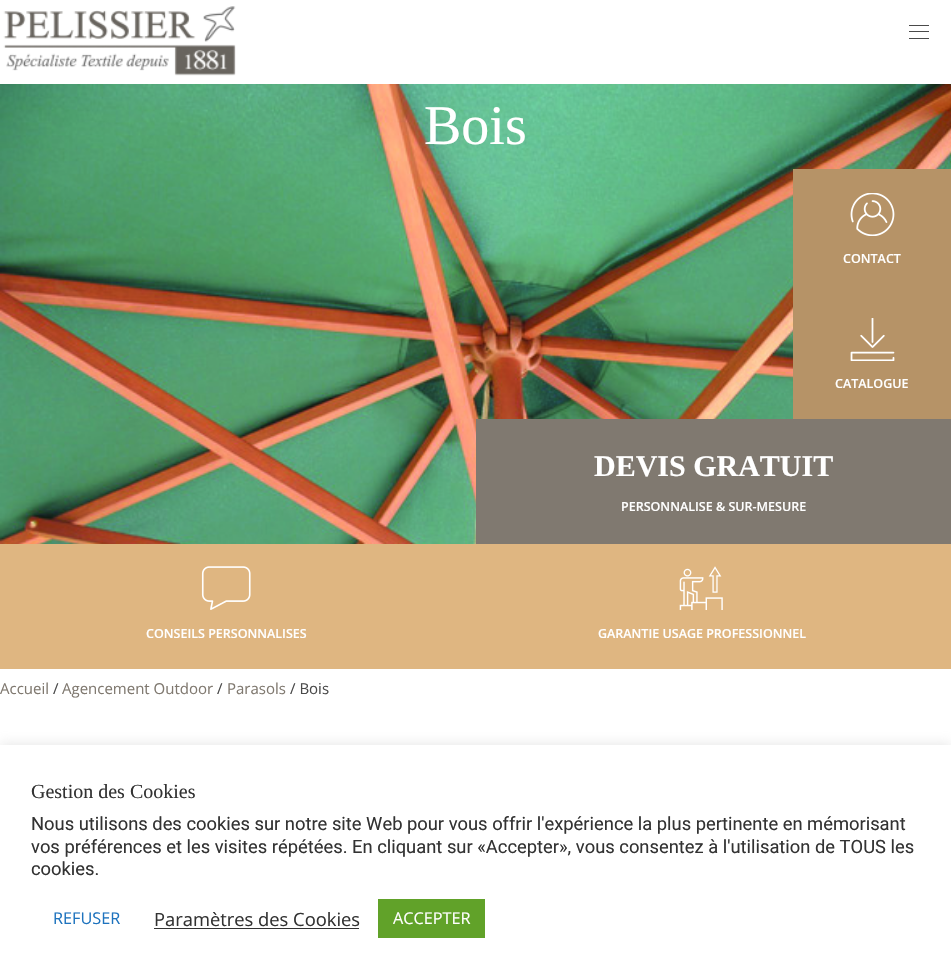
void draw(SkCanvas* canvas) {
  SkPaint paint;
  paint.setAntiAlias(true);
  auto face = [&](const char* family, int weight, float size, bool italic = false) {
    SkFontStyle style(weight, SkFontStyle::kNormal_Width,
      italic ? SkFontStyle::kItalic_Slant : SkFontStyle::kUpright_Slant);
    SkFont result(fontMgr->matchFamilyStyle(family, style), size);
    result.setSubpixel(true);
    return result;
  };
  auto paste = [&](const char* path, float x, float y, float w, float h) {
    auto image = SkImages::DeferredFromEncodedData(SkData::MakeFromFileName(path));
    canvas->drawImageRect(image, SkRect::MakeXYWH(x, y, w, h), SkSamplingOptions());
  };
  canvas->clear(0xffffffff);
  paste("img/1.png", 3, 6, 233, 70);
  {
    const struct { float x, y, w, h; SkColor color; } items[] = {
      {909, 25, 20, 1, 0xff4a4a4a},
      {909, 31, 20, 1, 0xff4a4a4a},
      {909, 38, 20, 1, 0xff4a4a4a},
    };
    for (auto [x, y, w, h, color] : items) {
      paint.setColor(color);
      canvas->drawRect(SkRect::MakeXYWH(x, y, w, h), paint);
    }
  }
  paste("img/2.png", 0, 84, 951, 460);
  paint.setColor(0xffb69367);
  canvas->drawRect(SkRect::MakeXYWH(793, 169, 158, 250), paint);
  paste("img/3.png", 850, 193, 45, 43);
  paste("img/4.png", 850, 318, 45, 43);
  paint.setColor(0xff807970);
  canvas->drawRect(SkRect::MakeXYWH(476, 419, 475, 125), paint);
  paint.setColor(0xffdfb681);
  canvas->drawRect(SkRect::MakeXYWH(0, 544, 951, 125), paint);
  paste("img/5.png", 201, 566, 50, 44);
  paste("img/6.png", 679, 566, 44, 44);
  paint.setColor(0x4dacabab);
  paint.setMaskFilter(SkMaskFilter::MakeBlur(kNormal_SkBlurStyle, 6));
  canvas->drawRect(SkRect::MakeXYWH(0, 744, 951, 230), paint);
  paint.setMaskFilter(nullptr);
  {
    const struct { float x, y, w, h; SkColor color; } items[] = {
      {0, 745, 951, 229, 0xffffffff},
      {154, 928, 205, 1, 0xff333333},
      {378, 899, 107, 39, 0xff61a229},
    };
    for (auto [x, y, w, h, color] : items) {
      paint.setColor(color);
      canvas->drawRect(SkRect::MakeXYWH(x, y, w, h), paint);
    }
  }
  auto f0 = face("Liberation Serif", 400, 56);
  paint.setColor(0xffffffff);
  canvas->drawString("Bois", 424, 144, f0, paint);
  auto f1 = face("Open Sans", 600, 12.5f);
  canvas->drawString("CONTACT", 843, 263, f1, paint);
  canvas->drawString("CATALOGUE", 835, 388, f1, paint);
  auto f2 = face("Liberation Serif", 700, 30);
  canvas->drawString("DEVIS GRATUIT", 594, 476, f2, paint);
  {
    const struct { const char* s; float x, y; } items[] = {
      {"PERSONNALISE & SUR-MESURE", 621, 511},
      {"CONSEILS PERSONNALISES", 146, 638},
      {"GARANTIE USAGE PROFESSIONNEL", 598, 638},
    };
    for (auto [s, x, y] : items) {
      canvas->drawString(s, x, y, f1, paint);
    }
  }
  auto f3 = face("Open Sans", 400, 15);
  paint.setColor(0xff807970);
  canvas->drawString("Accueil", 0, 694, f3, paint);
  paint.setColor(0xff4a4a4a);
  canvas->drawString("/", 53, 694, f3, paint);
  paint.setColor(0xff807970);
  canvas->drawString("Agencement Outdoor", 62, 694, f3, paint);
  paint.setColor(0xff4a4a4a);
  canvas->drawString("/", 217, 694, f3, paint);
  paint.setColor(0xff807970);
  canvas->drawString("Parasols", 227, 694, f3, paint);
  paint.setColor(0xff4a4a4a);
  canvas->drawString("/ Bois", 290, 694, f3, paint);
  auto f4 = face("Liberation Serif", 400, 20);
  paint.setColor(0xff333333);
  canvas->drawString("Gestion des Cookies", 31, 798, f4, paint);
  auto f5 = face("Roboto", 400, 18.35f);
  {
    const struct { const char* s; float x, y; } items[] = {
      {"Nous utilisons des cookies sur notre site Web pour vous offrir l'expérience la plus pertinente en mémorisant", 31, 830},
      {"vos préférences et les visites répétées. En cliquant sur «Accepter», vous consentez à l'utilisation de TOUS les", 31, 853},
      {"cookies.", 31, 875},
    };
    for (auto [s, x, y] : items) {
      canvas->drawString(s, x, y, f5, paint);
    }
  }
  auto f6 = face("Open Sans", 400, 16.25f);
  paint.setColor(0xff1e73be);
  canvas->drawString("REFUSER", 53, 924, f6, paint);
  auto f7 = face("Open Sans", 400, 18.35f);
  paint.setColor(0xff333333);
  canvas->drawString("Paramètres des Cookies", 154, 926, f7, paint);
  paint.setColor(0xffffffff);
  canvas->drawString("ACCEPTER", 393, 924, f6, paint);
}
